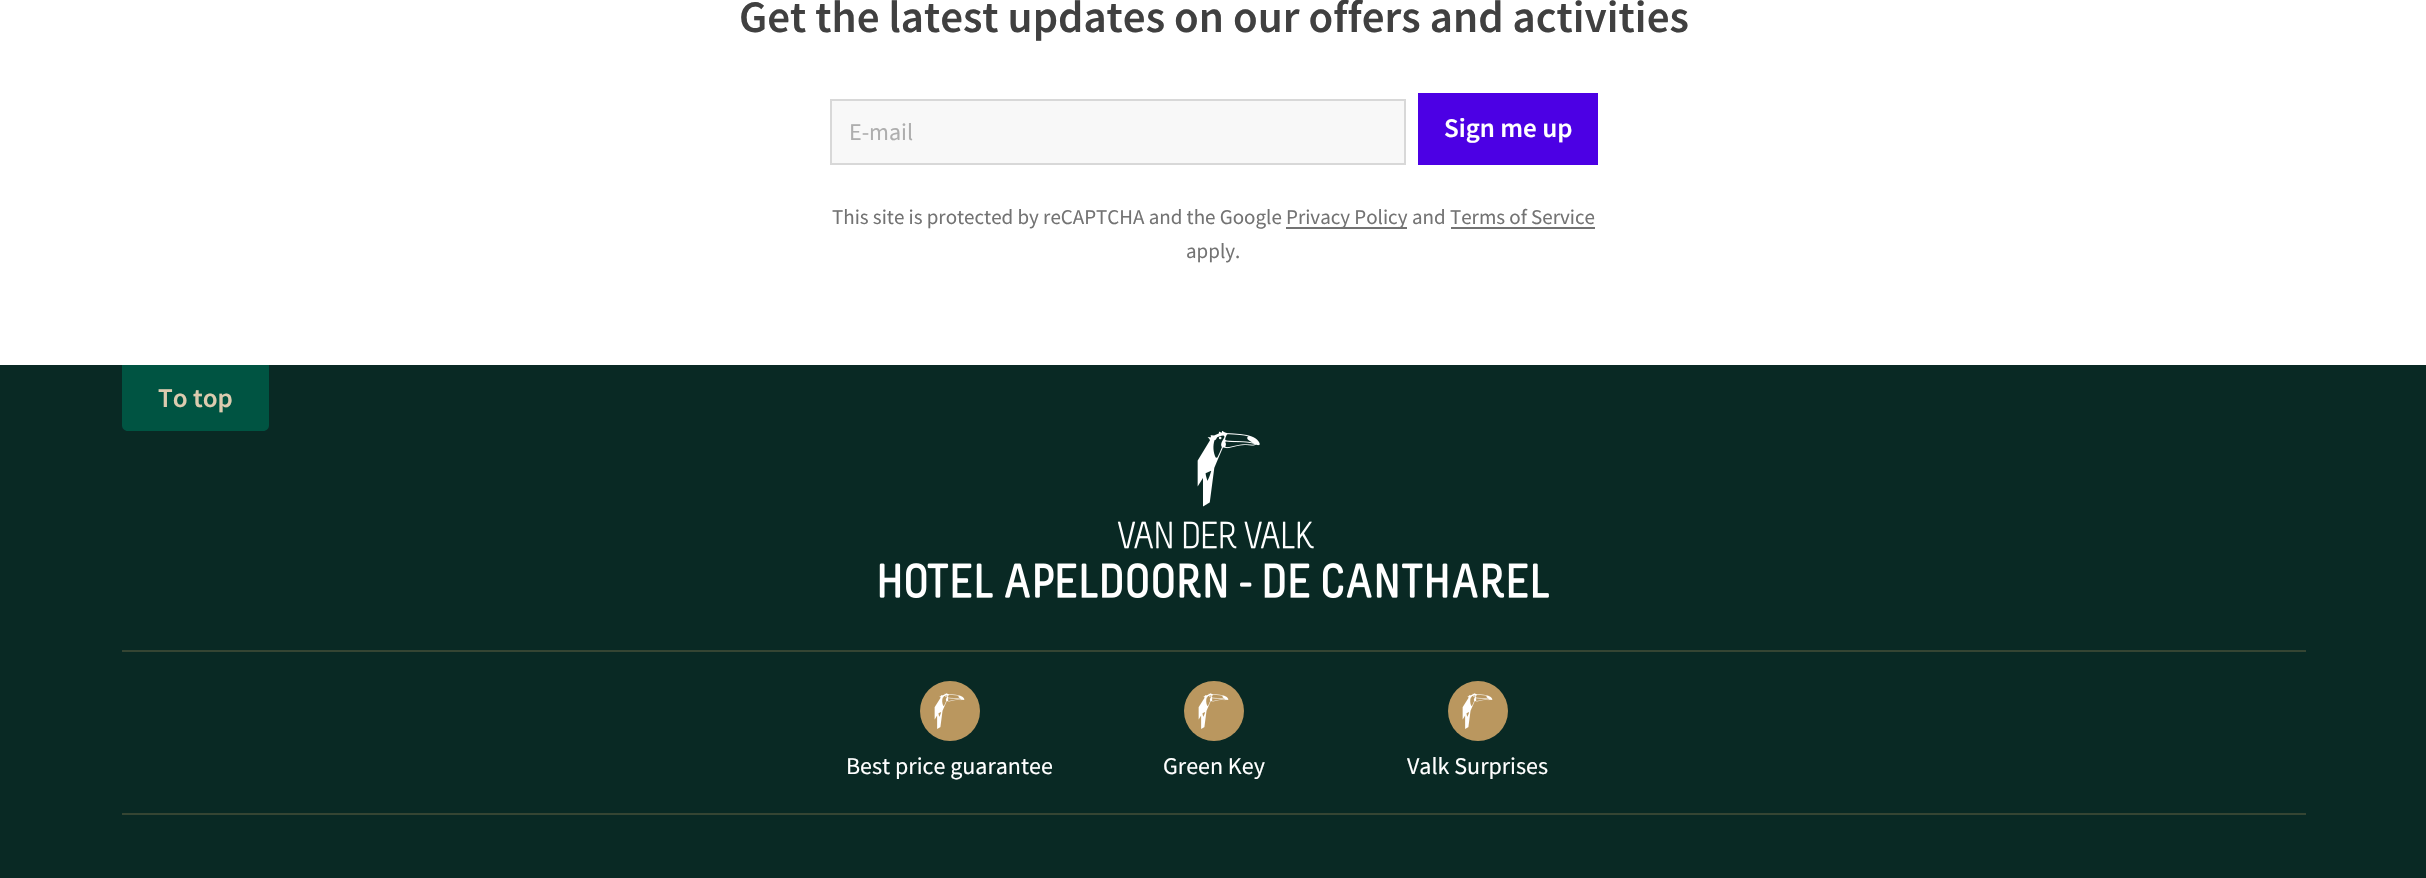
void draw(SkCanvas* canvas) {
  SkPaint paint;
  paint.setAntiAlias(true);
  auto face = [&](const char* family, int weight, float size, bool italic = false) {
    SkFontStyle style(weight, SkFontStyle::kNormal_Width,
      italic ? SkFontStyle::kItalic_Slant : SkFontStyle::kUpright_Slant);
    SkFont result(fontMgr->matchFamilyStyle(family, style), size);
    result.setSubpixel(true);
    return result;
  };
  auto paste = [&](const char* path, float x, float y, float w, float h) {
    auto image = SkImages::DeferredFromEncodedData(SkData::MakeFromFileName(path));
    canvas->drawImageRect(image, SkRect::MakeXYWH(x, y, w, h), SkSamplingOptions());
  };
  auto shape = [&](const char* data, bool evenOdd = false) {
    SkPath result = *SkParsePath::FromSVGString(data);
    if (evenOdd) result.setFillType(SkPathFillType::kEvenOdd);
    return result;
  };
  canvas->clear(0xffffffff);
  paint.setColor(0xfff8f8f8);
  canvas->drawRect(SkRect::MakeXYWH(831, 100, 574, 64), paint);
  paint.setStroke(true);
  paint.setStrokeWidth(2);
  paint.setColor(0xffd8d8d8);
  canvas->drawRect(SkRect::MakeXYWH(831, 100, 574, 64), paint);
  paint.setStroke(false);
  {
    const struct { float x, y, w, h; SkColor color; } items[] = {
      {1418, 93, 180, 72, 0xff4c00e4},
      {1286, 227, 121, 2, 0xff737373},
      {1451, 227, 144, 2, 0xff737373},
      {0, 365, 2426, 513, 0xff092924},
    };
    for (auto [x, y, w, h, color] : items) {
      paint.setColor(color);
      canvas->drawRect(SkRect::MakeXYWH(x, y, w, h), paint);
    }
  }
  paint.setColor(0xff005442);
  canvas->drawPath(shape("M122 365H269V425C269 428.5 266.5 431 263 431H128C124.5 431 122 428.5 122 425Z"), paint);
  paste("img/1.png", 879, 431, 670, 167);
  paint.setColor(0xff354533);
  canvas->drawRect(SkRect::MakeXYWH(122, 650, 2184, 2), paint);
  paint.setColor(0xffba975f);
  canvas->drawCircle(950, 711, 30, paint);
  paste("img/2.png", 934, 693, 31, 36);
  canvas->drawCircle(1214, 711, 30, paint);
  paste("img/2.png", 1198, 693, 31, 36);
  canvas->drawCircle(1478, 711, 30, paint);
  paste("img/2.png", 1462, 693, 31, 36);
  paint.setColor(0xff354533);
  canvas->drawRect(SkRect::MakeXYWH(122, 813, 2184, 2), paint);
  auto f0 = face("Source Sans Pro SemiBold", 600, 45);
  paint.setColor(0xff404040);
  canvas->drawString("Get the latest updates on our offers and activities", 739, 32, f0, paint);
  auto f1 = face("Source Sans Pro", 400, 24);
  paint.setColor(0xffaeaeae);
  canvas->drawString("E-mail", 849, 140, f1, paint);
  auto f2 = face("Source Sans Pro SemiBold", 600, 27);
  paint.setColor(0xffffffff);
  canvas->drawString("Sign me up", 1444, 137, f2, paint);
  auto f3 = face("Source Sans Pro", 400, 21);
  paint.setColor(0xff737373);
  {
    const struct { const char* s; float x, y; } items[] = {
      {"This site is protected by reCAPTCHA and the Google", 832, 224},
      {"Privacy Policy", 1286, 224},
      {"and Terms of Service", 1412, 224},
      {"apply.", 1186, 258},
    };
    for (auto [s, x, y] : items) {
      canvas->drawString(s, x, y, f3, paint);
    }
  }
  paint.setColor(0xffdccbaf);
  canvas->drawString("To top", 158, 407, f2, paint);
  paint.setColor(0xffffffff);
  {
    const struct { const char* s; float x, y; } items[] = {
      {"Best price guarantee", 846, 774},
      {"Green Key", 1163, 774},
      {"Valk Surprises", 1407, 774},
    };
    for (auto [s, x, y] : items) {
      canvas->drawString(s, x, y, f1, paint);
    }
  }
}
